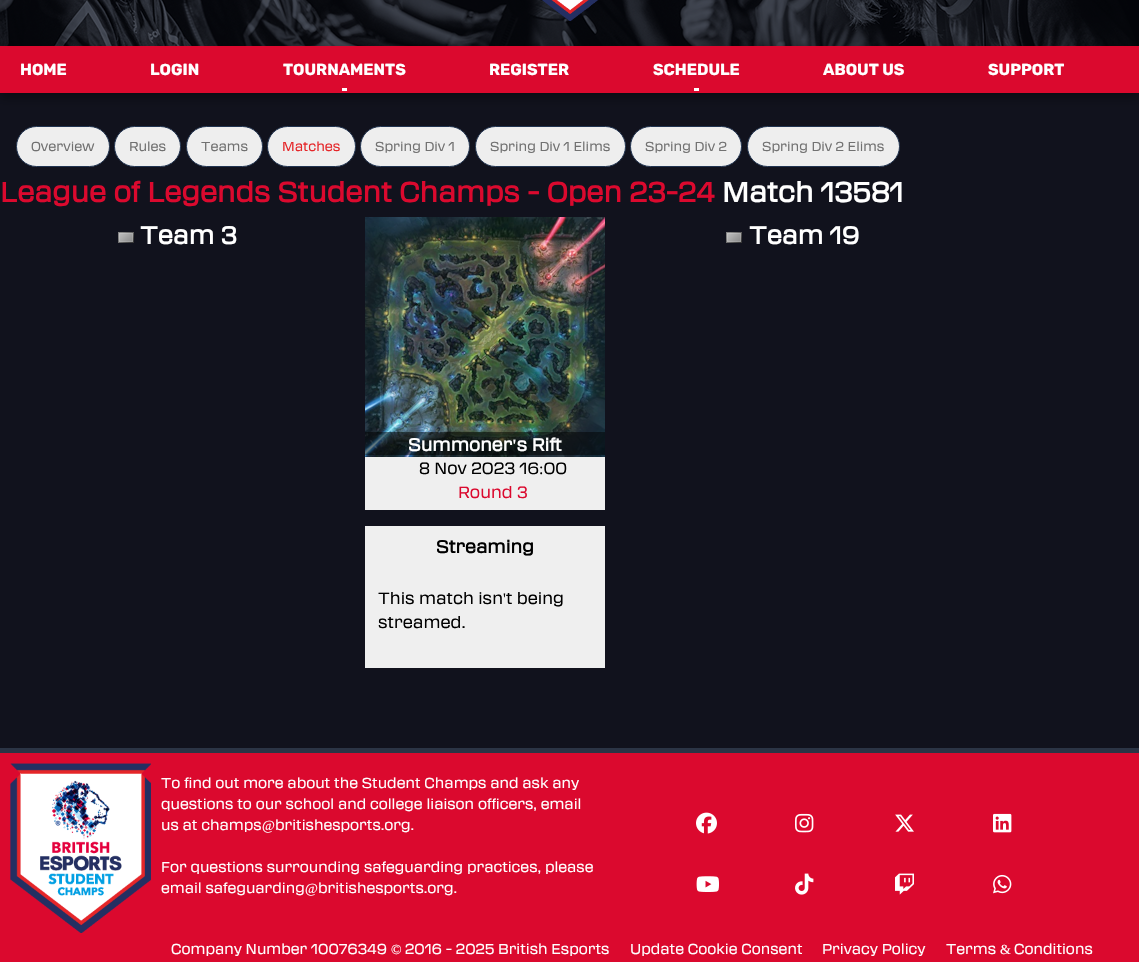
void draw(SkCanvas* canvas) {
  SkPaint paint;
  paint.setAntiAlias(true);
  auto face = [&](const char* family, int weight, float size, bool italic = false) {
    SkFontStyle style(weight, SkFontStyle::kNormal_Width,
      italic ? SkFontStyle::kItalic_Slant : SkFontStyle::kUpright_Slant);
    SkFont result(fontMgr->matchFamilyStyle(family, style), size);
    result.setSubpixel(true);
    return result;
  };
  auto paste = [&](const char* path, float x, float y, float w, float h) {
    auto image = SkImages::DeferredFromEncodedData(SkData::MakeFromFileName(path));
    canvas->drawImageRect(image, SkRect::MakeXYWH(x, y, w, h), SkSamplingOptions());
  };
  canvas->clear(0xffffffff);
  paste("img/1.png", 0, 0, 1139, 46);
  paste("img/2.png", 542, 0, 57, 21);
  paint.setColor(0xff11121d);
  canvas->drawRect(SkRect::MakeXYWH(0, 93, 1139, 655), paint);
  paint.setColor(0x5c000000);
  paint.setMaskFilter(SkMaskFilter::MakeBlur(kNormal_SkBlurStyle, 5));
  canvas->drawRect(SkRect::MakeXYWH(0, 51, 1139, 47), paint);
  paint.setMaskFilter(nullptr);
  {
    const struct { float x, y, w, h; SkColor color; } items[] = {
      {0, 46, 1139, 47, 0xffdb092e},
      {342, 88, 5, 3, 0xffffffff},
      {694, 88, 5, 3, 0xffffffff},
    };
    for (auto [x, y, w, h, color] : items) {
      paint.setColor(color);
      canvas->drawRect(SkRect::MakeXYWH(x, y, w, h), paint);
    }
  }
  paint.setColor(0xffeeeeee);
  canvas->drawRoundRect(SkRect::MakeXYWH(16.5f, 126.5f, 93, 40), 20, 20, paint);
  paint.setStroke(true);
  paint.setStrokeWidth(1);
  paint.setColor(0xff213451);
  canvas->drawRoundRect(SkRect::MakeXYWH(16.5f, 126.5f, 93, 40), 20, 20, paint);
  paint.setStroke(false);
  paint.setColor(0xffeeeeee);
  canvas->drawRoundRect(SkRect::MakeXYWH(114.5f, 126.5f, 66, 40), 20, 20, paint);
  paint.setStroke(true);
  paint.setColor(0xff213451);
  canvas->drawRoundRect(SkRect::MakeXYWH(114.5f, 126.5f, 66, 40), 20, 20, paint);
  paint.setStroke(false);
  paint.setColor(0xffeeeeee);
  canvas->drawRoundRect(SkRect::MakeXYWH(186.5f, 126.5f, 76, 40), 20, 20, paint);
  paint.setStroke(true);
  paint.setColor(0xff213451);
  canvas->drawRoundRect(SkRect::MakeXYWH(186.5f, 126.5f, 76, 40), 20, 20, paint);
  paint.setStroke(false);
  paint.setColor(0xffeeeeee);
  canvas->drawRoundRect(SkRect::MakeXYWH(267.5f, 126.5f, 88, 40), 20, 20, paint);
  paint.setStroke(true);
  paint.setColor(0xff213451);
  canvas->drawRoundRect(SkRect::MakeXYWH(267.5f, 126.5f, 88, 40), 20, 20, paint);
  paint.setStroke(false);
  paint.setColor(0xffeeeeee);
  canvas->drawRoundRect(SkRect::MakeXYWH(360.5f, 126.5f, 109, 40), 20, 20, paint);
  paint.setStroke(true);
  paint.setColor(0xff213451);
  canvas->drawRoundRect(SkRect::MakeXYWH(360.5f, 126.5f, 109, 40), 20, 20, paint);
  paint.setStroke(false);
  paint.setColor(0xffeeeeee);
  canvas->drawRoundRect(SkRect::MakeXYWH(475.5f, 126.5f, 150, 40), 20, 20, paint);
  paint.setStroke(true);
  paint.setColor(0xff213451);
  canvas->drawRoundRect(SkRect::MakeXYWH(475.5f, 126.5f, 150, 40), 20, 20, paint);
  paint.setStroke(false);
  paint.setColor(0xffeeeeee);
  canvas->drawRoundRect(SkRect::MakeXYWH(630.5f, 126.5f, 111, 40), 20, 20, paint);
  paint.setStroke(true);
  paint.setColor(0xff213451);
  canvas->drawRoundRect(SkRect::MakeXYWH(630.5f, 126.5f, 111, 40), 20, 20, paint);
  paint.setStroke(false);
  paint.setColor(0xffeeeeee);
  canvas->drawRoundRect(SkRect::MakeXYWH(747.5f, 126.5f, 152, 40), 20, 20, paint);
  paint.setStroke(true);
  paint.setColor(0xff213451);
  canvas->drawRoundRect(SkRect::MakeXYWH(747.5f, 126.5f, 152, 40), 20, 20, paint);
  paste("img/3.png", 118, 232, 16, 11);
  paste("img/3.png", 726, 232, 16, 11);
  paint.setStroke(false);
  paint.setColor(0xffefefef);
  canvas->drawRect(SkRect::MakeXYWH(365, 457, 240, 53), paint);
  paste("img/4.png", 365, 217, 240, 240);
  {
    const struct { float x, y, w, h; SkColor color; } items[] = {
      {365, 432, 240, 23, 0x80000000},
      {365, 526, 240, 142, 0xffefefef},
      {0, 748, 1139, 5, 0xff2b3445},
      {0, 753, 1139, 209, 0xffdb092e},
    };
    for (auto [x, y, w, h, color] : items) {
      paint.setColor(color);
      canvas->drawRect(SkRect::MakeXYWH(x, y, w, h), paint);
    }
  }
  paste("img/5.png", 10, 763, 141, 170);
  paste("img/6.png", 696, 812, 21, 22);
  paste("img/7.png", 795, 813, 19, 20);
  paste("img/8.png", 895, 814, 19, 18);
  paste("img/9.png", 993, 813, 19, 20);
  paste("img/10.png", 696, 876, 23, 16);
  paste("img/11.png", 795, 873, 19, 22);
  paste("img/12.png", 895, 873, 19, 22);
  paste("img/13.png", 993, 874, 19, 20);
  auto f0 = face("Rubik", 700, 16);
  paint.setColor(0xffffffff);
  {
    const struct { const char* s; float x, y; } items[] = {
      {"HOME", 20, 75},
      {"LOGIN", 150, 75},
      {"TOURNAMENTS", 283, 75},
      {"REGISTER", 489, 75},
      {"SCHEDULE", 653, 75},
      {"ABOUT US", 823, 75},
      {"SUPPORT", 988, 75},
    };
    for (auto [s, x, y] : items) {
      canvas->drawString(s, x, y, f0, paint);
    }
  }
  auto f1 = face("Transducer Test", 400, 12.75f);
  paint.setColor(0xff717171);
  {
    const struct { const char* s; float x, y; } items[] = {
      {"Overview", 31, 151},
      {"Rules", 129, 151},
      {"Teams", 201, 151},
    };
    for (auto [s, x, y] : items) {
      canvas->drawString(s, x, y, f1, paint);
    }
  }
  paint.setColor(0xffe52629);
  canvas->drawString("Matches", 282, 151, f1, paint);
  paint.setColor(0xff717171);
  {
    const struct { const char* s; float x, y; } items[] = {
      {"Spring Div 1", 375, 151},
      {"Spring Div 1 Elims", 490, 151},
      {"Spring Div 2", 645, 151},
      {"Spring Div 2 Elims", 762, 151},
    };
    for (auto [s, x, y] : items) {
      canvas->drawString(s, x, y, f1, paint);
    }
  }
  auto f2 = face("Transducer Test", 700, 27.2f);
  paint.setColor(0xffdb092e);
  canvas->drawString("League of Legends Student Champs - Open 23-24", 0, 202, f2, paint);
  paint.setColor(0xffffffff);
  canvas->drawString("Match 13581", 722, 202, f2, paint);
  auto f3 = face("Transducer Test", 700, 24);
  canvas->drawString("Team 3", 140, 244, f3, paint);
  canvas->drawString("Team 19", 749, 244, f3, paint);
  auto f4 = face("Transducer Test", 700, 17.25f);
  canvas->drawString("Summoner s Rift", 408, 451, f4, paint);
  auto f5 = face("Liberation Serif", 700, 17.25f);
  canvas->drawString("'", 512, 451, f5, paint);
  auto f6 = face("Transducer Test", 400, 16);
  paint.setColor(0xff000000);
  canvas->drawString("8 Nov 2023 16 00", 419, 474, f6, paint);
  auto f7 = face("Liberation Serif", 400, 16);
  canvas->drawString(":", 539, 474, f7, paint);
  paint.setColor(0xffdb092e);
  canvas->drawString("Round 3", 458, 498, f6, paint);
  paint.setColor(0xff000000);
  canvas->drawString("Streaming", 436, 553, f4, paint);
  canvas->drawString("This match isn", 378, 604, f6, paint);
  canvas->drawString("'", 503, 604, f7, paint);
  canvas->drawString("t being", 506, 604, f6, paint);
  canvas->drawString("streamed.", 378, 628, f6, paint);
  auto f8 = face("Transducer Test", 400, 14);
  paint.setColor(0xffffffff);
  {
    const struct { const char* s; float x, y; } items[] = {
      {"To find out more about the Student Champs and ask any", 161, 788},
      {"questions to our school and college liaison officers, email", 161, 809},
      {"us at champs", 161, 830},
    };
    for (auto [s, x, y] : items) {
      canvas->drawString(s, x, y, f8, paint);
    }
  }
  auto f9 = face("Liberation Serif", 400, 14);
  canvas->drawString("@", 262, 830, f9, paint);
  {
    const struct { const char* s; float x, y; } items[] = {
      {"britishesports.org.", 275, 830},
      {"For questions surrounding safeguarding practices, please", 161, 872},
      {"email safeguarding", 161, 893},
    };
    for (auto [s, x, y] : items) {
      canvas->drawString(s, x, y, f8, paint);
    }
  }
  canvas->drawString("@", 305, 893, f9, paint);
  canvas->drawString("britishesports.org.", 318, 893, f8, paint);
  canvas->drawString("Company Number 10076349", 171, 954, f8, paint);
  canvas->drawString("©", 391, 954, f9, paint);
  {
    const struct { const char* s; float x, y; } items[] = {
      {"2016 - 2025 British Esports", 405, 954},
      {"Update Cookie Consent", 630, 954},
      {"Privacy Policy", 822, 954},
      {"Terms", 946, 954},
    };
    for (auto [s, x, y] : items) {
      canvas->drawString(s, x, y, f8, paint);
    }
  }
  canvas->drawString("&", 1000, 954, f9, paint);
  canvas->drawString("Conditions", 1014, 954, f8, paint);
}
